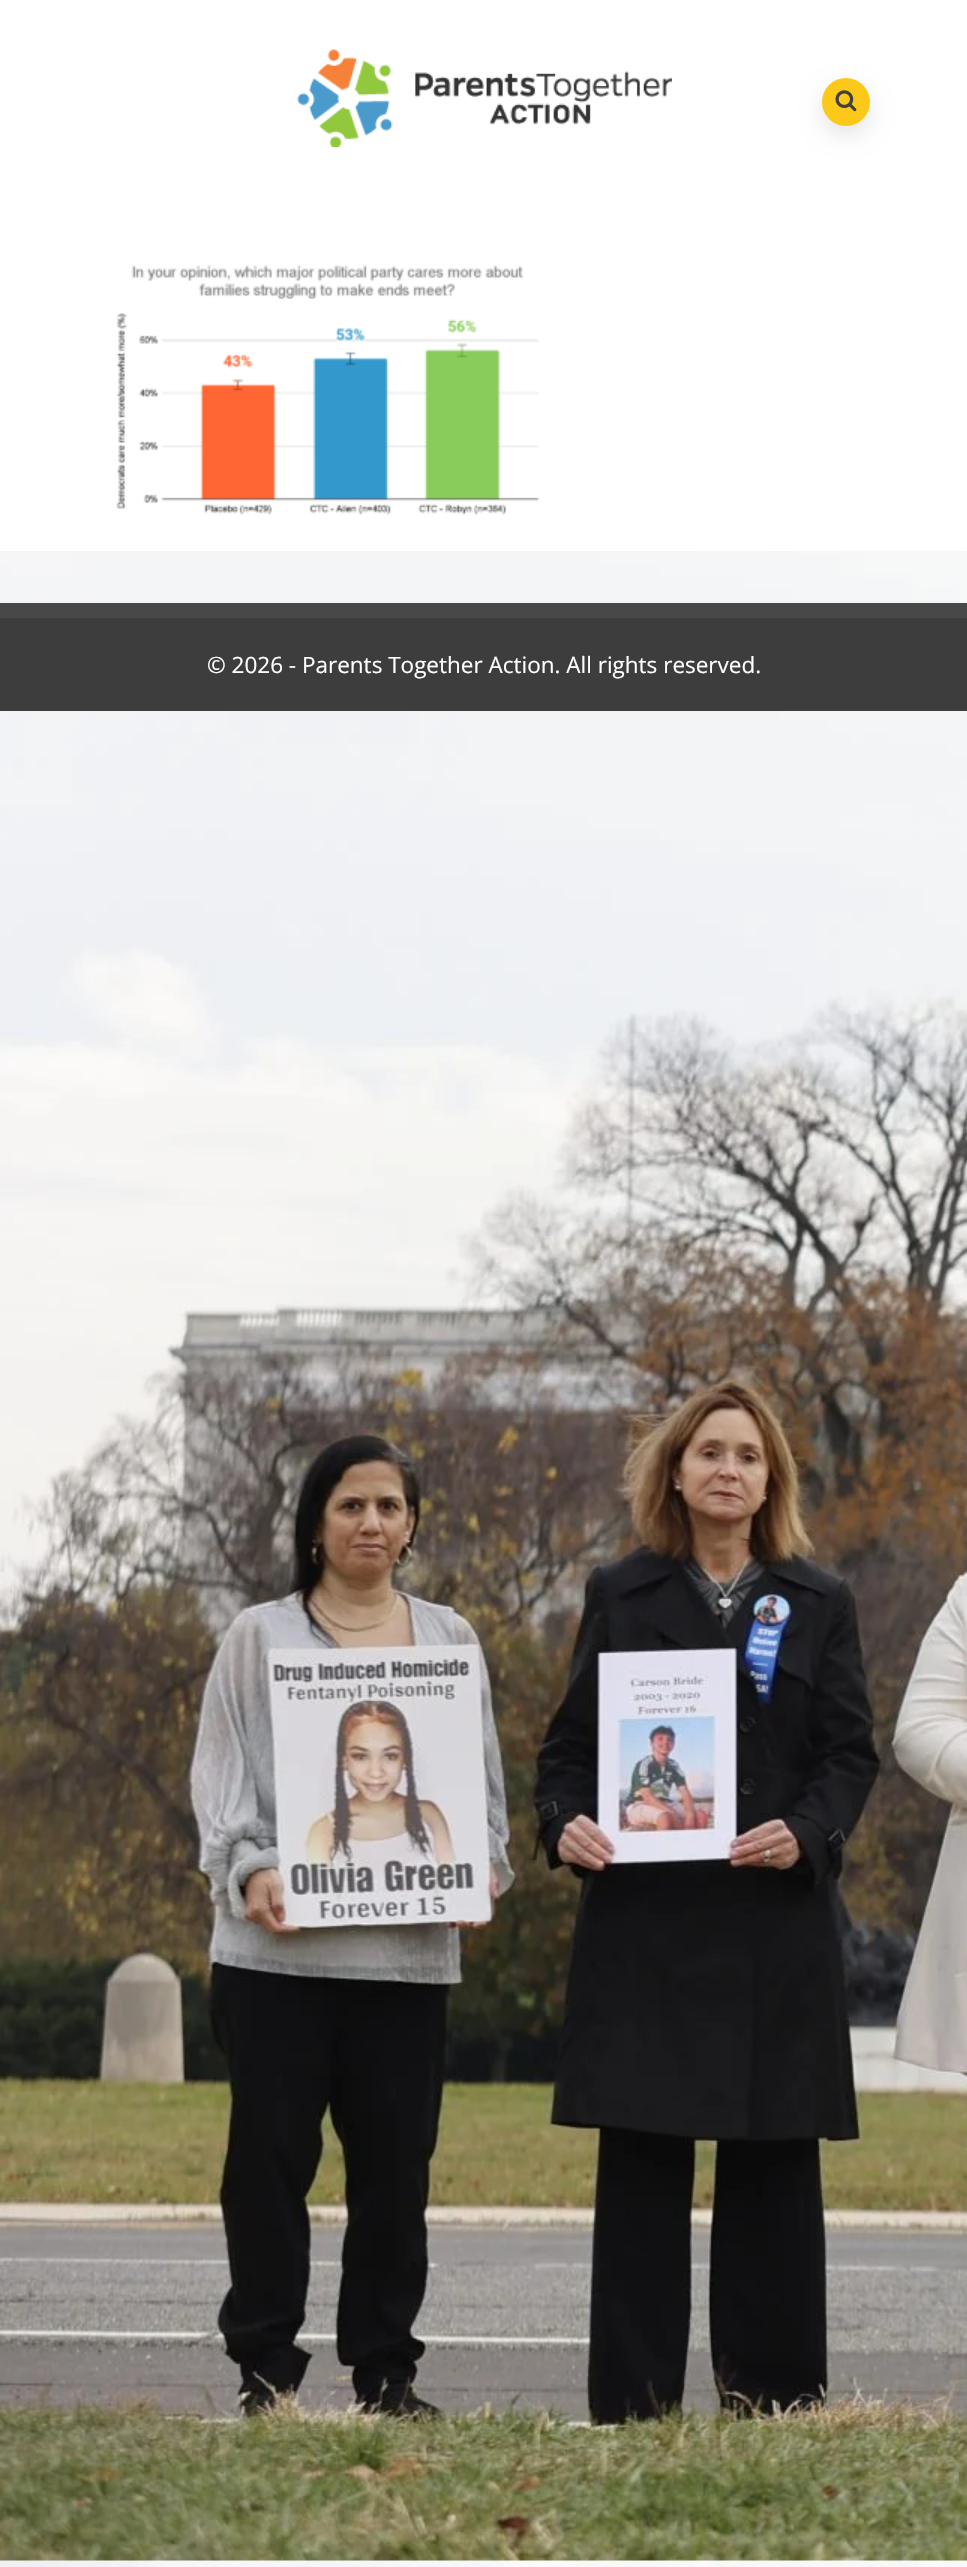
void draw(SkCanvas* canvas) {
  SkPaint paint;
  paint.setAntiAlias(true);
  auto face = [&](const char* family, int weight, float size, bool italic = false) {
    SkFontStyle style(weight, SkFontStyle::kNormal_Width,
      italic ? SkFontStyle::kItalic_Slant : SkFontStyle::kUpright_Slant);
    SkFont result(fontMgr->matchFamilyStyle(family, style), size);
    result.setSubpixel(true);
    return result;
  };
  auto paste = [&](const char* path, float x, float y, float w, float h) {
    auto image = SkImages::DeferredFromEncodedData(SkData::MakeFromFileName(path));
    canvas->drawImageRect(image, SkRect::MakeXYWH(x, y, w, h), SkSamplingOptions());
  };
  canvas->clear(0xffffffff);
  paste("img/1.png", 0, 551, 967, 2016);
  paste("img/2.png", 297, 49, 375, 98);
  paint.setColor(0x1a000000);
  paint.setMaskFilter(SkMaskFilter::MakeBlur(kNormal_SkBlurStyle, 10.5f));
  canvas->drawRoundRect(SkRect::MakeXYWH(822, 87, 48, 48), 24, 24, paint);
  paint.setMaskFilter(nullptr);
  paint.setColor(0xfffcc91b);
  canvas->drawCircle(846, 102, 24, paint);
  paste("img/3.png", 835, 90, 22, 22);
  paste("img/4.png", 116, 265, 423, 250);
  paint.setColor(0xff484848);
  canvas->drawRect(SkRect::MakeXYWH(0, 603, 967, 15), paint);
  paint.setColor(0xff3e3d3d);
  canvas->drawRect(SkRect::MakeXYWH(0, 618, 967, 93), paint);
  auto f0 = face("Open Sans", 400, 22.5f);
  paint.setColor(0xffffffff);
  canvas->drawString("© 2026 - Parents Together Action. All rights reserved.", 207, 673, f0, paint);
}
